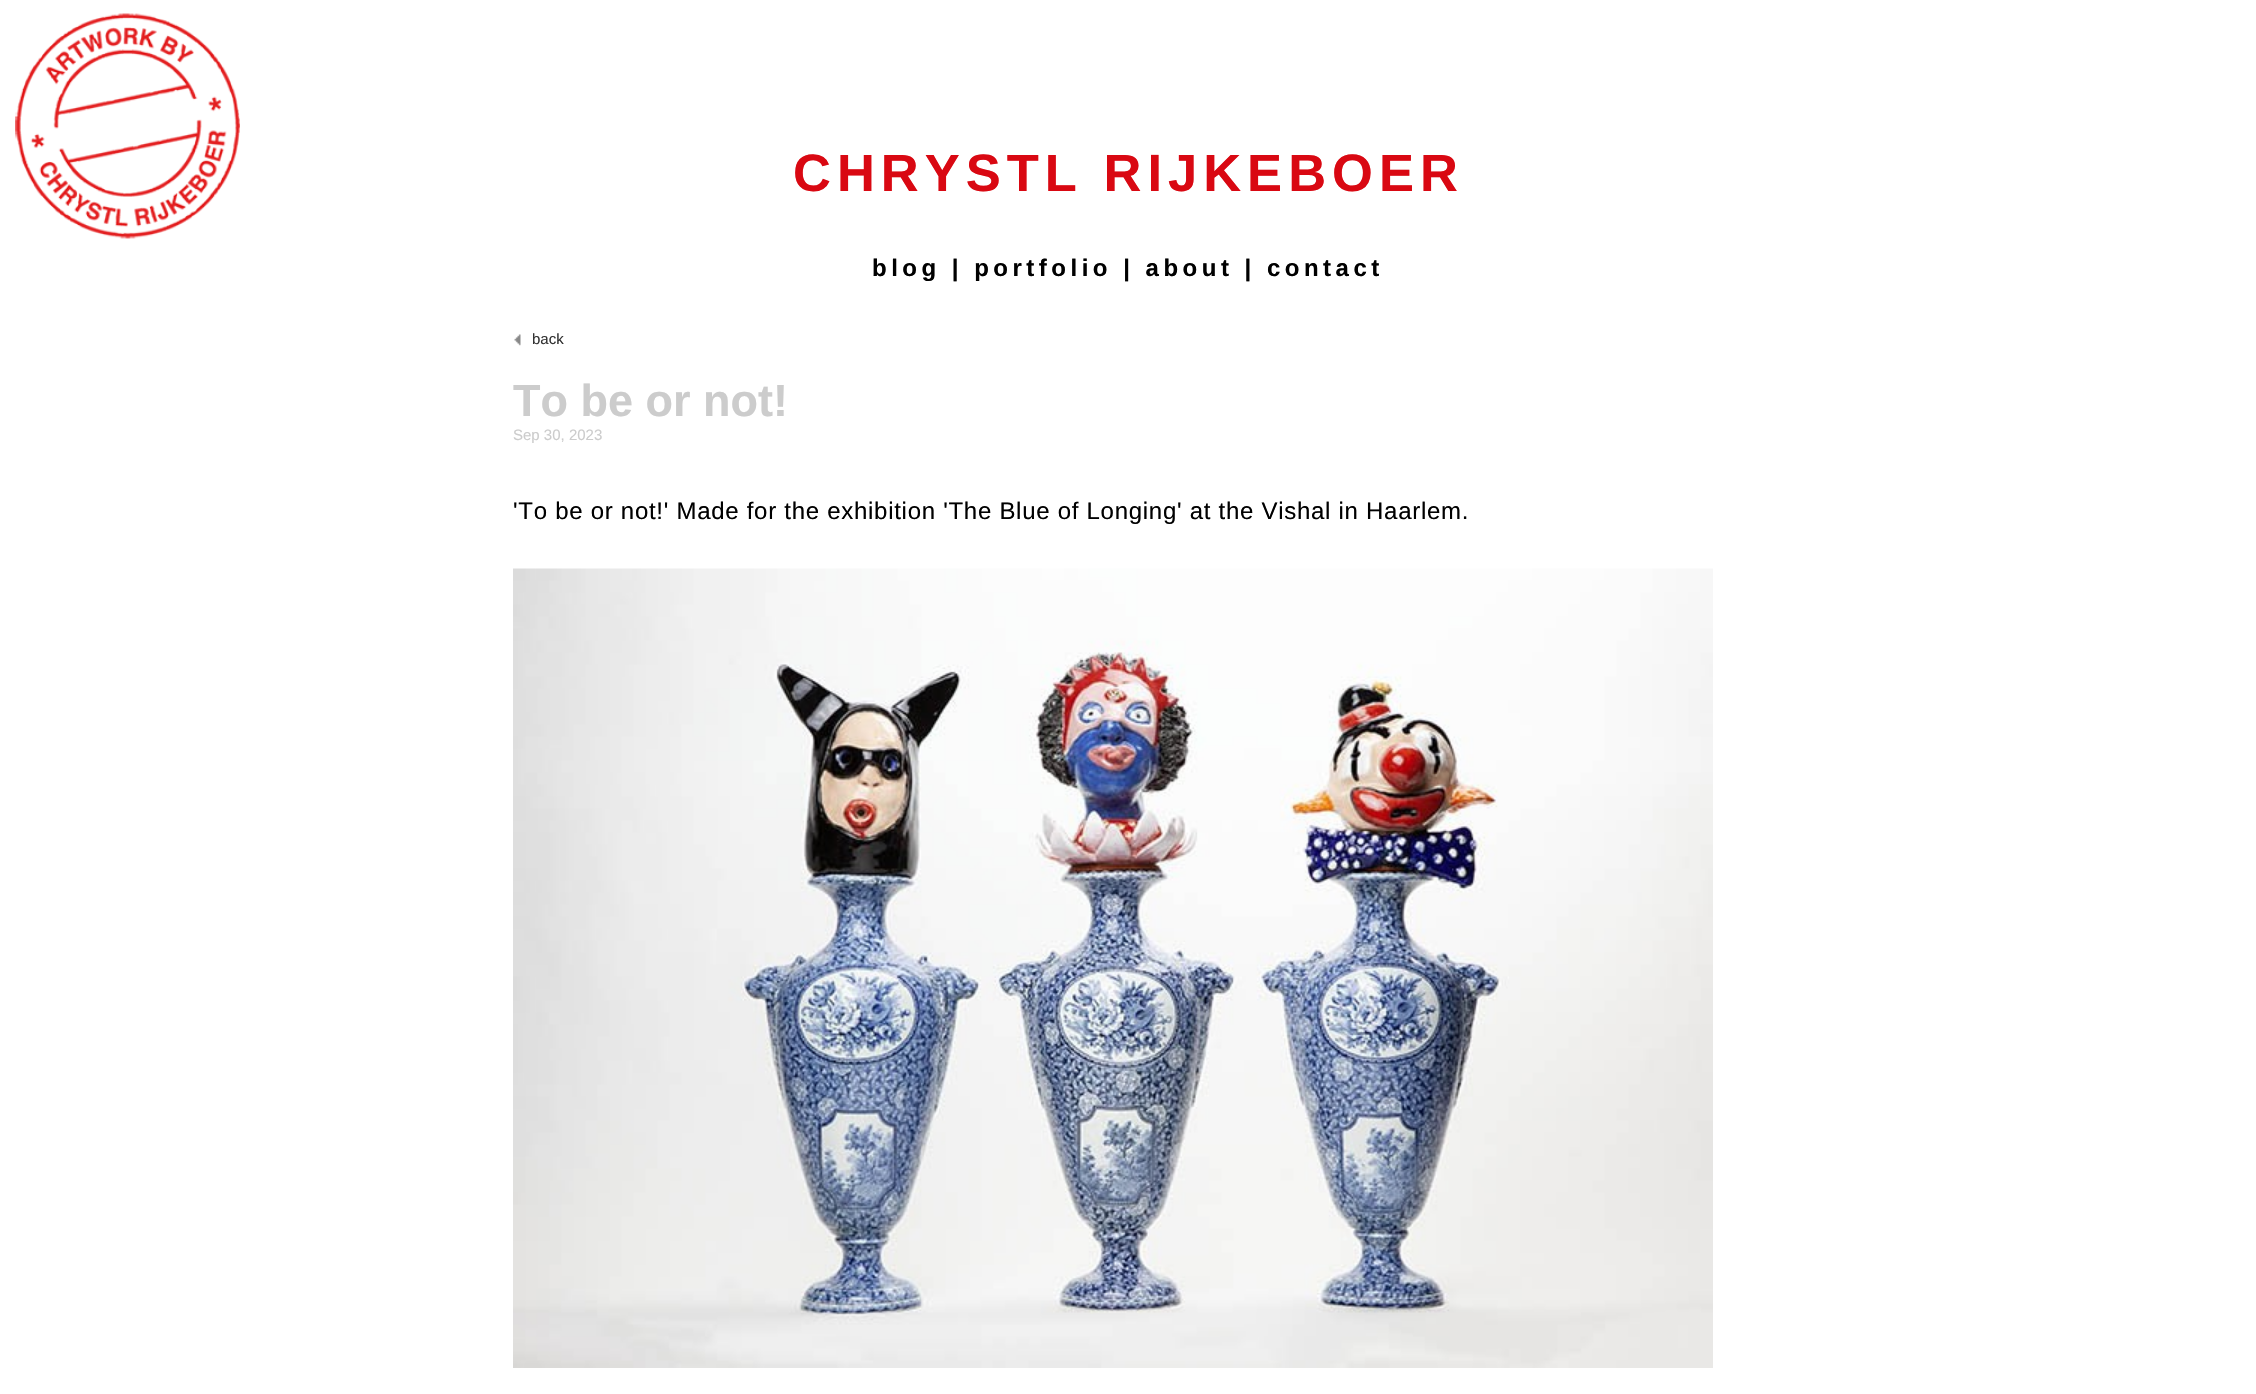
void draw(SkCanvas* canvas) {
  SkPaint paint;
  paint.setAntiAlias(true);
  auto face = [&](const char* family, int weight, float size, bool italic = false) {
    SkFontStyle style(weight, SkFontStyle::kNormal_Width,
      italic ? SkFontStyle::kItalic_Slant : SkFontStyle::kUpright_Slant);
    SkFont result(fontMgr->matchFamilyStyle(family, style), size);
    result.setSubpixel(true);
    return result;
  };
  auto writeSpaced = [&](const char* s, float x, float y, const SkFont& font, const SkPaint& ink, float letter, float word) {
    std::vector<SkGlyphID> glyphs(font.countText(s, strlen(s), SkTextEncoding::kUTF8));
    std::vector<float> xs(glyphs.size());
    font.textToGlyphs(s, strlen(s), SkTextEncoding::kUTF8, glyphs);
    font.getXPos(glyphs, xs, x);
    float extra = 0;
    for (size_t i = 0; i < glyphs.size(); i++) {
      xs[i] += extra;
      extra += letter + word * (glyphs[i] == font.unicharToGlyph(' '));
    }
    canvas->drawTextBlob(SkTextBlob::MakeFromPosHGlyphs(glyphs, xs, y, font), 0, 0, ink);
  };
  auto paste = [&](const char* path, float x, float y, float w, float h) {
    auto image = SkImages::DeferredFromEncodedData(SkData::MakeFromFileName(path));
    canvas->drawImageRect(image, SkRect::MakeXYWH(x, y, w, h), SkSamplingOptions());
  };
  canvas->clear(0xffffffff);
  paste("img/1.png", 15, 13, 225, 226);
  paste("img/2.png", 514, 334, 7, 12);
  paste("img/3.png", 513, 568, 1200, 800);
  auto f0 = face("Liberation Sans", 700, 52.5f);
  paint.setColor(0xffd90812);
  writeSpaced("CHRYSTL RIJKEBOER", 793, 191, f0, paint, 6, 0);
  auto f1 = face("Liberation Sans", 700, 24);
  paint.setColor(0xff000000);
  writeSpaced("blog | portfolio | about | contact", 872, 276, f1, paint, 4.5f, 0);
  auto f2 = face("Liberation Sans", 400, 15);
  paint.setColor(0xff333333);
  canvas->drawString("back", 532, 344, f2, paint);
  auto f3 = face("Liberation Sans", 700, 45);
  paint.setColor(0xffcccccc);
  canvas->drawString("To be or not!", 513, 416, f3, paint);
  canvas->drawString("Sep 30, 2023", 513, 440, f2, paint);
  auto f4 = face("Liberation Sans", 400, 24);
  paint.setColor(0xff000000);
  writeSpaced("'To be or not!' Made for the exhibition 'The Blue of Longing' at the Vishal in Haarlem.", 513, 519, f4, paint, 0.72f, 0);
}
